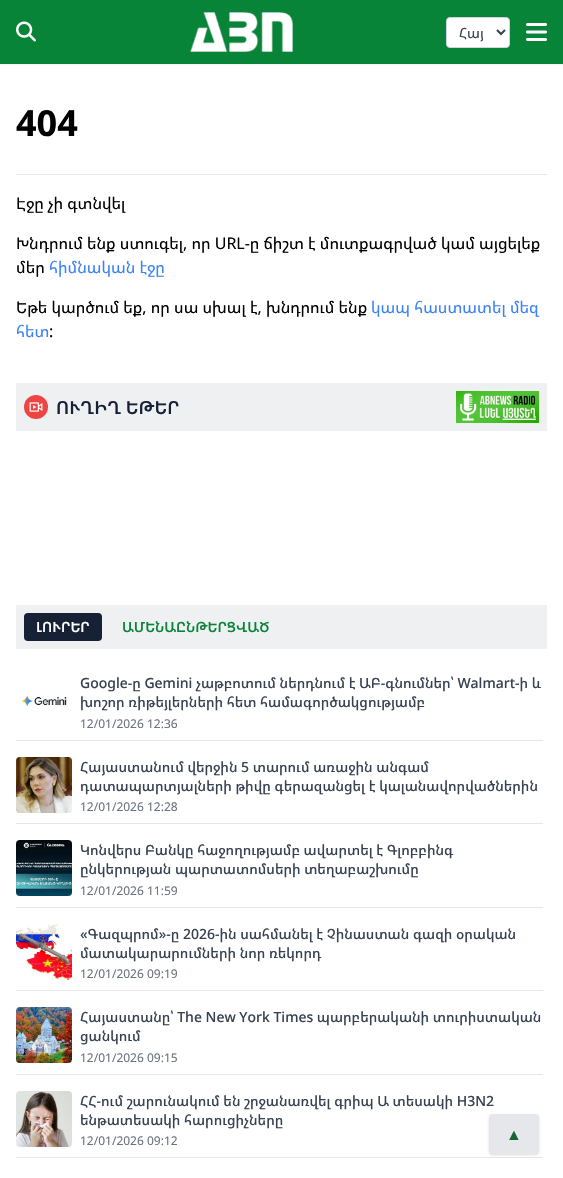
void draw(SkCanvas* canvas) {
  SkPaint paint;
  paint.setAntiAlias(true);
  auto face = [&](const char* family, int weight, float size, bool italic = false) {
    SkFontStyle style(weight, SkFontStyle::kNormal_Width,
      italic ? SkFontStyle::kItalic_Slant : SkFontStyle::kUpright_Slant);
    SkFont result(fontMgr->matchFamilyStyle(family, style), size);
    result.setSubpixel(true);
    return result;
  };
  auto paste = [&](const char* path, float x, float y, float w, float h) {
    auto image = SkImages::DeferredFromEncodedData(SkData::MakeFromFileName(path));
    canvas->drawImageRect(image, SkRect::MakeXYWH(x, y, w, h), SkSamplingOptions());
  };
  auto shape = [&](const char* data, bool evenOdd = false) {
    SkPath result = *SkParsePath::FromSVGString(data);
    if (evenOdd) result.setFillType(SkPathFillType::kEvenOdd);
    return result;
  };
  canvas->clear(0xffffffff);
  paint.setColor(0x0d000000);
  paint.setMaskFilter(SkMaskFilter::MakeBlur(kNormal_SkBlurStyle, 1));
  canvas->drawRect(SkRect::MakeXYWH(0, 1, 563, 64), paint);
  paint.setMaskFilter(nullptr);
  paint.setColor(0xff088439);
  canvas->drawRect(SkRect::MakeXYWH(0, 0, 563, 64), paint);
  paste("img/1.png", 16, 21, 20, 21);
  paste("img/2.png", 190, 12, 103, 40);
  paint.setColor(0xffffffff);
  canvas->drawRoundRect(SkRect::MakeXYWH(446.5f, 17.5f, 63, 30), 3.5f, 3.5f, paint);
  paint.setStroke(true);
  paint.setStrokeWidth(1);
  paint.setColor(0xffd1d5db);
  canvas->drawRoundRect(SkRect::MakeXYWH(446.5f, 17.5f, 63, 30), 3.5f, 3.5f, paint);
  paint.setStrokeWidth(2);
  paint.setColor(0xff374151);
  canvas->drawPath(shape("M497 30L501 34L505 30"), paint);
  paste("img/3.png", 526, 23, 21, 18);
  paint.setStroke(false);
  paint.setColor(0xffe5e7eb);
  canvas->drawRect(SkRect::MakeXYWH(16, 174, 531, 1), paint);
  paint.setColor(0xffeef0f2);
  canvas->drawRect(SkRect::MakeXYWH(16, 383, 531, 48), paint);
  paint.setColor(0xffef4444);
  canvas->drawCircle(36, 407, 12, paint);
  paste("img/4.png", 29, 402, 14, 10);
  paste("img/5.png", 456, 391, 83, 32);
  paint.setColor(0xffeef0f2);
  canvas->drawRect(SkRect::MakeXYWH(16, 605, 531, 44), paint);
  paint.setColor(0xff162136);
  canvas->drawRoundRect(SkRect::MakeXYWH(24, 613, 78, 28), 4, 4, paint);
  paint.setColor(0xffe5e7eb);
  canvas->drawRect(SkRect::MakeXYWH(16, 740, 527, 1), paint);
  paste("img/6.png", 19, 694, 48, 13);
  canvas->drawRect(SkRect::MakeXYWH(16, 823, 527, 1), paint);
  paste("img/7.png", 16, 757, 56, 56);
  canvas->drawRect(SkRect::MakeXYWH(16, 907, 527, 1), paint);
  paste("img/8.png", 16, 840, 56, 56);
  canvas->drawRect(SkRect::MakeXYWH(16, 990, 527, 1), paint);
  paste("img/9.png", 16, 924, 56, 56);
  canvas->drawRect(SkRect::MakeXYWH(16, 1074, 527, 1), paint);
  paste("img/10.png", 16, 1007, 56, 56);
  canvas->drawRect(SkRect::MakeXYWH(16, 1157, 527, 1), paint);
  paste("img/11.png", 16, 1091, 56, 56);
  paint.setColor(0x1a000000);
  paint.setMaskFilter(SkMaskFilter::MakeBlur(kNormal_SkBlurStyle, 1));
  canvas->drawRoundRect(SkRect::MakeXYWH(490, 1116, 48, 38), 3, 3, paint);
  paint.setMaskFilter(nullptr);
  paint.setMaskFilter(SkMaskFilter::MakeBlur(kNormal_SkBlurStyle, 1.5f));
  canvas->drawRoundRect(SkRect::MakeXYWH(489, 1115, 50, 40), 4, 4, paint);
  paint.setMaskFilter(nullptr);
  paint.setColor(0xffe5e7eb);
  canvas->drawRoundRect(SkRect::MakeXYWH(489, 1114, 50, 40), 4, 4, paint);
  auto f0 = face("Noto Sans Armenian", 400, 14);
  paint.setColor(0xff374151);
  canvas->drawString("Հայ", 459, 38, f0, paint);
  auto f1 = face("Noto Sans Armenian", 700, 36);
  paint.setColor(0xff000000);
  canvas->drawString("404", 16, 136, f1, paint);
  auto f2 = face("Noto Sans Armenian", 400, 16);
  {
    const struct { const char* s; float x, y; } items[] = {
      {"Էջը չի գտնվել", 16, 209},
      {"Խնդրում ենք ստուգել, որ URL-ը ճիշտ է մուտքագրված կամ այցելեք", 16, 249},
      {"մեր", 16, 273},
    };
    for (auto [s, x, y] : items) {
      canvas->drawString(s, x, y, f2, paint);
    }
  }
  paint.setColor(0xff3b82f6);
  canvas->drawString("հիմնական էջը", 49, 273, f2, paint);
  paint.setColor(0xff000000);
  canvas->drawString("Եթե կարծում եք, որ սա սխալ է, խնդրում ենք", 16, 313, f2, paint);
  paint.setColor(0xff3b82f6);
  canvas->drawString("կապ հաստատել մեզ", 371, 313, f2, paint);
  canvas->drawString("հետ", 16, 337, f2, paint);
  paint.setColor(0xff000000);
  canvas->drawString(":", 49, 337, f2, paint);
  auto f3 = face("Noto Sans Armenian", 600, 18);
  paint.setColor(0xff162136);
  canvas->drawString("ՈՒՂԻՂ ԵԹԵՐ", 56, 414, f3, paint);
  auto f4 = face("Noto Sans Armenian", 600, 14);
  paint.setColor(0xffffffff);
  canvas->drawString("ԼՈՒՐԵՐ", 36, 632, f4, paint);
  paint.setColor(0xff088439);
  canvas->drawString("ԱՄԵՆԱԸՆԹԵՐՑՎԱԾ", 122, 632, f4, paint);
  auto f5 = face("Noto Sans Armenian", 500, 14);
  paint.setColor(0xff374151);
  canvas->drawString("Google-ը Gemini չաթբոտում ներդնում է ԱԲ-գնումներ՝ Walmart-ի և", 80, 688, f5, paint);
  canvas->drawString("խոշոր ռիթեյլերների հետ համագործակցությամբ", 80, 707, f5, paint);
  auto f6 = face("Noto Sans Armenian", 400, 12);
  paint.setColor(0xff6b7280);
  canvas->drawString("12/01/2026 12:36", 80, 728, f6, paint);
  paint.setColor(0xff374151);
  canvas->drawString("Հայաստանում վերջին 5 տարում առաջին անգամ", 80, 772, f5, paint);
  canvas->drawString("դատապարտյալների թիվը գերազանցել է կալանավորվածներին", 80, 791, f5, paint);
  paint.setColor(0xff6b7280);
  canvas->drawString("12/01/2026 12:28", 80, 811, f6, paint);
  paint.setColor(0xff374151);
  canvas->drawString("Կոնվերս Բանկը հաջողությամբ ավարտել է Գլոբբինգ", 80, 855, f5, paint);
  canvas->drawString("ընկերության պարտատոմսերի տեղաբաշխումը", 80, 874, f5, paint);
  paint.setColor(0xff6b7280);
  canvas->drawString("12/01/2026 11:59", 80, 895, f6, paint);
  paint.setColor(0xff374151);
  canvas->drawString("«Գազպրոմ»-ը 2026-ին սահմանել է Չինաստան գազի օրական", 80, 939, f5, paint);
  canvas->drawString("մատակարարումների նոր ռեկորդ", 80, 958, f5, paint);
  paint.setColor(0xff6b7280);
  canvas->drawString("12/01/2026 09:19", 80, 978, f6, paint);
  paint.setColor(0xff374151);
  canvas->drawString("Հայաստանը՝ The New York Times պարբերականի տուրիստական", 80, 1022, f5, paint);
  canvas->drawString("ցանկում", 80, 1041, f5, paint);
  paint.setColor(0xff6b7280);
  canvas->drawString("12/01/2026 09:15", 80, 1062, f6, paint);
  paint.setColor(0xff374151);
  canvas->drawString("ՀՀ-ում շարունակում են շրջանառվել գրիպ Ա տեսակի H3N2", 80, 1106, f5, paint);
  canvas->drawString("ենթատեսակի հարուցիչները", 80, 1125, f5, paint);
  paint.setColor(0xff6b7280);
  canvas->drawString("12/01/2026 09:12", 80, 1145, f6, paint);
  auto f7 = face("Liberation Sans", 400, 16);
  paint.setColor(0xff166534);
  canvas->drawString("▲", 506, 1140, f7, paint);
}
